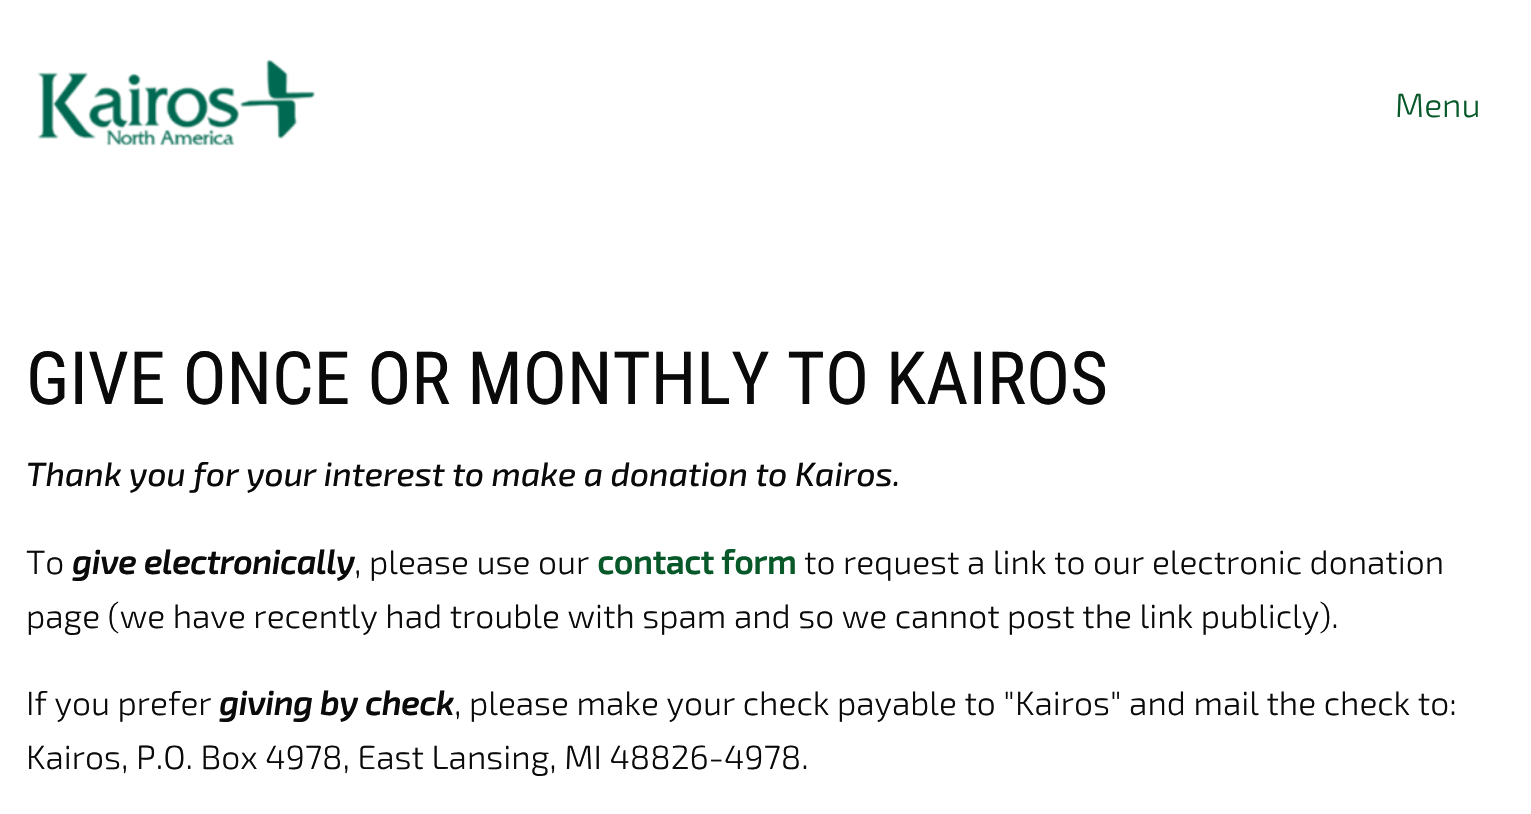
void draw(SkCanvas* canvas) {
  SkPaint paint;
  paint.setAntiAlias(true);
  auto face = [&](const char* family, int weight, float size, bool italic = false) {
    SkFontStyle style(weight, SkFontStyle::kNormal_Width,
      italic ? SkFontStyle::kItalic_Slant : SkFontStyle::kUpright_Slant);
    SkFont result(fontMgr->matchFamilyStyle(family, style), size);
    result.setSubpixel(true);
    return result;
  };
  auto paste = [&](const char* path, float x, float y, float w, float h) {
    auto image = SkImages::DeferredFromEncodedData(SkData::MakeFromFileName(path));
    canvas->drawImageRect(image, SkRect::MakeXYWH(x, y, w, h), SkSamplingOptions());
  };
  canvas->clear(0xffffffff);
  paste("img/1.png", 37, 60, 278, 86);
  auto f0 = face("Exo 2", 300, 33.6f);
  paint.setColor(0xff07592a);
  canvas->drawString("Menu", 1395, 117, f0, paint);
  auto f1 = face("Roboto Condensed", 400, 73.5f);
  paint.setColor(0xff0a0a0a);
  canvas->drawString("GIVE ONCE OR MONTHLY TO KAIROS", 26, 404, f1, paint);
  auto f2 = face("Exo 2", 500, 33.6f, true);
  canvas->drawString("Thank you for your interest to make a donation to Kairos.", 26, 486, f2, paint);
  canvas->drawString("To", 26, 574, f0, paint);
  auto f3 = face("Exo 2", 700, 33.6f, true);
  canvas->drawString("give electronically", 72, 574, f3, paint);
  canvas->drawString(", please use our", 354, 574, f0, paint);
  auto f4 = face("Exo 2", 700, 33.6f);
  paint.setColor(0xff07592a);
  canvas->drawString("contact form", 597, 574, f4, paint);
  paint.setColor(0xff0a0a0a);
  {
    const struct { const char* s; float x, y; } items[] = {
      {"to request a link to our electronic donation", 804, 574},
      {"page (we have recently had trouble with spam and so we cannot post the link publicly).", 26, 628},
      {"If you prefer", 26, 715},
    };
    for (auto [s, x, y] : items) {
      canvas->drawString(s, x, y, f0, paint);
    }
  }
  canvas->drawString("giving by check", 219, 715, f3, paint);
  canvas->drawString(", please make your check payable to \"Kairos\" and mail the check to:", 454, 715, f0, paint);
  canvas->drawString("Kairos, P.O. Box 4978, East Lansing, MI 48826-4978.", 26, 769, f0, paint);
}
